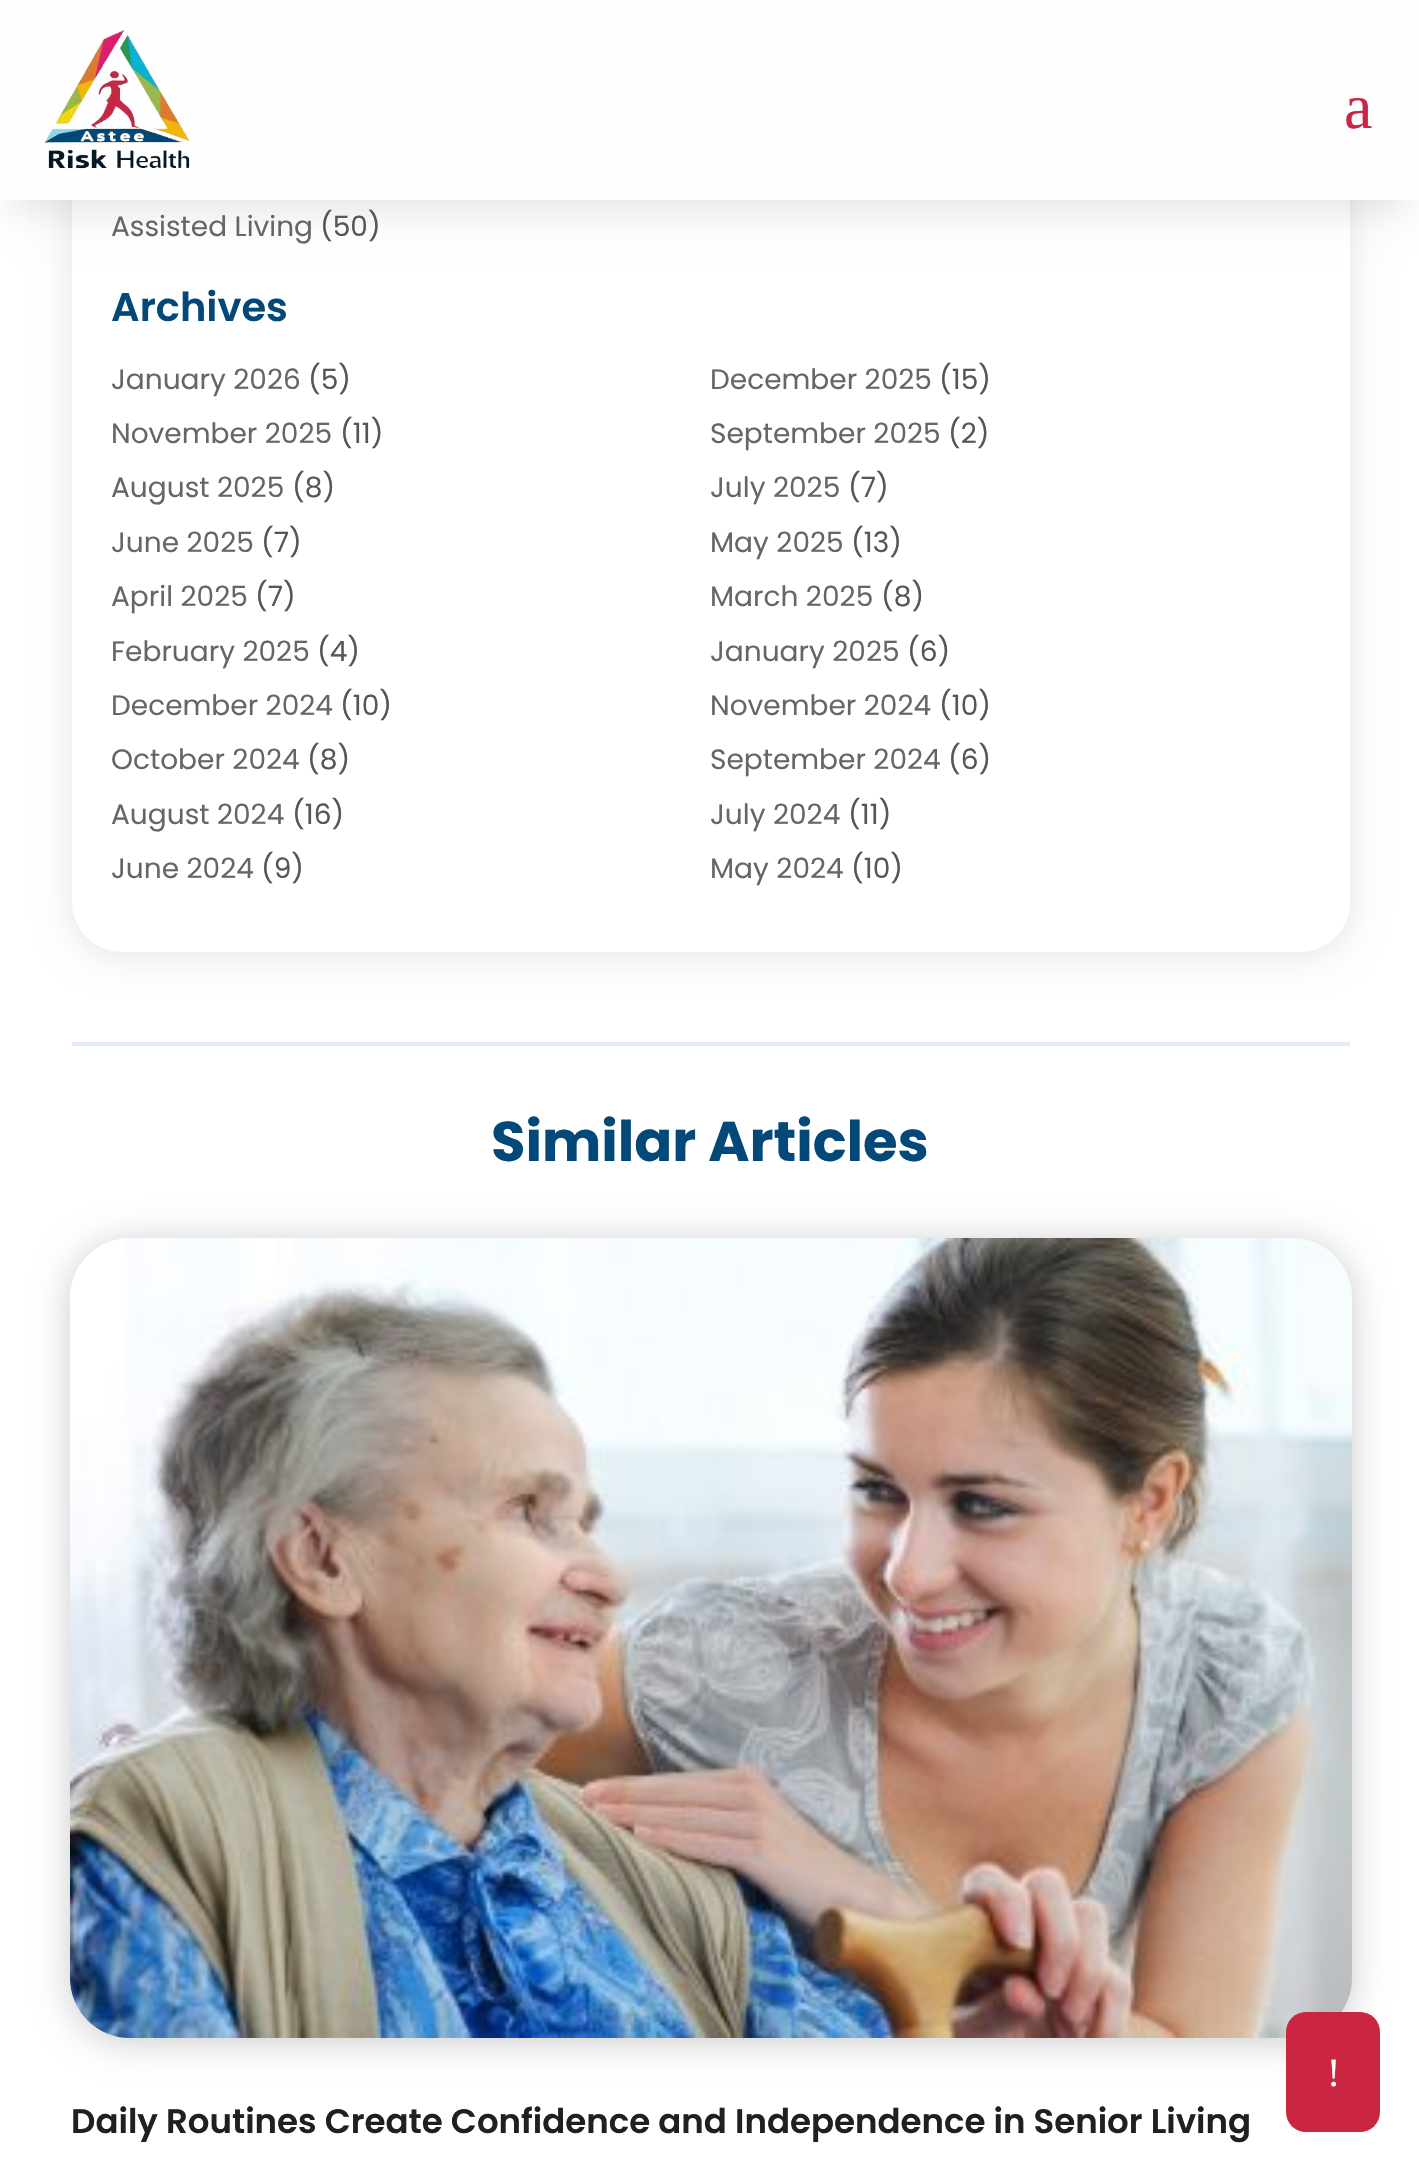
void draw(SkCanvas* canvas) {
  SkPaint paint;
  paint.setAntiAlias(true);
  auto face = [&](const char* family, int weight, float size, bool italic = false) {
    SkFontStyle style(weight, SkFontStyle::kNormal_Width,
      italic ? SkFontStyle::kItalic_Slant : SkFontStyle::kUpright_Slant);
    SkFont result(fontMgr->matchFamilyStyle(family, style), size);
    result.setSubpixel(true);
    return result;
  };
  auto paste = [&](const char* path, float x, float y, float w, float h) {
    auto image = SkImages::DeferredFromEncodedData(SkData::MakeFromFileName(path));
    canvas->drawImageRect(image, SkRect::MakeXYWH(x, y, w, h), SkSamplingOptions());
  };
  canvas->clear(0xffffffff);
  paint.setColor(0x1a000000);
  paint.setMaskFilter(SkMaskFilter::MakeBlur(kNormal_SkBlurStyle, 18));
  canvas->drawRoundRect(SkRect::MakeXYWH(72, -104, 1278, 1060), 50, 50, paint);
  paint.setMaskFilter(nullptr);
  paint.setColor(0xffffffff);
  canvas->drawRoundRect(SkRect::MakeXYWH(72, -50, 1278, 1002), 50, 50, paint);
  paint.setColor(0x1a000000);
  paint.setMaskFilter(SkMaskFilter::MakeBlur(kNormal_SkBlurStyle, 18));
  canvas->drawRect(SkRect::MakeXYWH(12, 36, 1396, 176), paint);
  paint.setMaskFilter(nullptr);
  paint.setColor(0xfffefefe);
  canvas->drawRect(SkRect::MakeXYWH(0, 0, 1419, 200), paint);
  paste("img/1.png", 44, 29, 146, 140);
  paint.setColor(0xffe5ebff);
  canvas->drawRect(SkRect::MakeXYWH(72, 1042, 1278, 4), paint);
  paint.setColor(0x33000000);
  paint.setMaskFilter(SkMaskFilter::MakeBlur(kNormal_SkBlurStyle, 18));
  canvas->drawRoundRect(SkRect::MakeXYWH(70, 1242, 1282, 800), 60, 60, paint);
  paint.setMaskFilter(nullptr);
  paste("img/2.png", 70, 1238, 1282, 800);
  paint.setColor(0xffca2641);
  canvas->drawRoundRect(SkRect::MakeXYWH(1286, 2012, 94, 120), 20, 20, paint);
  auto f0 = face("Liberation Serif", 400, 64);
  paint.setColor(0xffca2545);
  canvas->drawString("a", 1344, 128, f0, paint);
  auto f1 = face("Poppins", 400, 28);
  paint.setColor(0xff666666);
  canvas->drawString("Assisted Living", 111, 236, f1, paint);
  paint.setColor(0xff565656);
  canvas->drawString("(50)", 320, 236, f1, paint);
  auto f2 = face("Poppins", 600, 40);
  paint.setColor(0xff024878);
  canvas->drawString("Archives", 111, 321, f2, paint);
  paint.setColor(0xff666666);
  canvas->drawString("January 2026", 111, 389, f1, paint);
  paint.setColor(0xff565656);
  canvas->drawString("(5)", 308, 389, f1, paint);
  paint.setColor(0xff666666);
  canvas->drawString("December 2025", 710, 389, f1, paint);
  paint.setColor(0xff565656);
  canvas->drawString("(15)", 939, 389, f1, paint);
  paint.setColor(0xff666666);
  canvas->drawString("November 2025", 111, 443, f1, paint);
  paint.setColor(0xff565656);
  canvas->drawString("(11)", 340, 443, f1, paint);
  paint.setColor(0xff666666);
  canvas->drawString("September 2025", 710, 443, f1, paint);
  paint.setColor(0xff565656);
  canvas->drawString("(2)", 948, 443, f1, paint);
  paint.setColor(0xff666666);
  canvas->drawString("August 2025", 111, 497, f1, paint);
  paint.setColor(0xff565656);
  canvas->drawString("(8)", 292, 497, f1, paint);
  paint.setColor(0xff666666);
  canvas->drawString("July 2025", 710, 497, f1, paint);
  paint.setColor(0xff565656);
  canvas->drawString("(7)", 848, 497, f1, paint);
  paint.setColor(0xff666666);
  canvas->drawString("June 2025", 111, 552, f1, paint);
  paint.setColor(0xff565656);
  canvas->drawString("(7)", 261, 552, f1, paint);
  paint.setColor(0xff666666);
  canvas->drawString("May 2025", 710, 552, f1, paint);
  paint.setColor(0xff565656);
  canvas->drawString("(13)", 851, 552, f1, paint);
  paint.setColor(0xff666666);
  canvas->drawString("April 2025", 111, 606, f1, paint);
  paint.setColor(0xff565656);
  canvas->drawString("(7)", 255, 606, f1, paint);
  paint.setColor(0xff666666);
  canvas->drawString("March 2025", 710, 606, f1, paint);
  paint.setColor(0xff565656);
  canvas->drawString("(8)", 881, 606, f1, paint);
  paint.setColor(0xff666666);
  canvas->drawString("February 2025", 111, 661, f1, paint);
  paint.setColor(0xff565656);
  canvas->drawString("(4)", 317, 661, f1, paint);
  paint.setColor(0xff666666);
  canvas->drawString("January 2025", 710, 661, f1, paint);
  paint.setColor(0xff565656);
  canvas->drawString("(6)", 907, 661, f1, paint);
  paint.setColor(0xff666666);
  canvas->drawString("December 2024", 111, 715, f1, paint);
  paint.setColor(0xff565656);
  canvas->drawString("(10)", 340, 715, f1, paint);
  paint.setColor(0xff666666);
  canvas->drawString("November 2024", 710, 715, f1, paint);
  paint.setColor(0xff565656);
  canvas->drawString("(10)", 939, 715, f1, paint);
  paint.setColor(0xff666666);
  canvas->drawString("October 2024", 111, 769, f1, paint);
  paint.setColor(0xff565656);
  canvas->drawString("(8)", 307, 769, f1, paint);
  paint.setColor(0xff666666);
  canvas->drawString("September 2024", 710, 769, f1, paint);
  paint.setColor(0xff565656);
  canvas->drawString("(6)", 948, 769, f1, paint);
  paint.setColor(0xff666666);
  canvas->drawString("August 2024", 111, 824, f1, paint);
  paint.setColor(0xff565656);
  canvas->drawString("(16)", 292, 824, f1, paint);
  paint.setColor(0xff666666);
  canvas->drawString("July 2024", 710, 824, f1, paint);
  paint.setColor(0xff565656);
  canvas->drawString("(11)", 848, 824, f1, paint);
  paint.setColor(0xff666666);
  canvas->drawString("June 2024", 111, 878, f1, paint);
  paint.setColor(0xff565656);
  canvas->drawString("(9)", 261, 878, f1, paint);
  paint.setColor(0xff666666);
  canvas->drawString("May 2024", 710, 878, f1, paint);
  paint.setColor(0xff565656);
  canvas->drawString("(10)", 851, 878, f1, paint);
  auto f3 = face("Poppins", 700, 56);
  paint.setColor(0xff024878);
  canvas->drawString("Similar Articles", 491, 1161, f3, paint);
  auto f4 = face("Poppins", 600, 34);
  paint.setColor(0xff202020);
  canvas->drawString("Daily Routines Create Confidence and Independence in Senior Living", 71, 2133, f4, paint);
  auto f5 = face("Liberation Serif", 400, 40);
  paint.setColor(0xffffffff);
  canvas->drawString("!", 1327, 2086, f5, paint);
}
